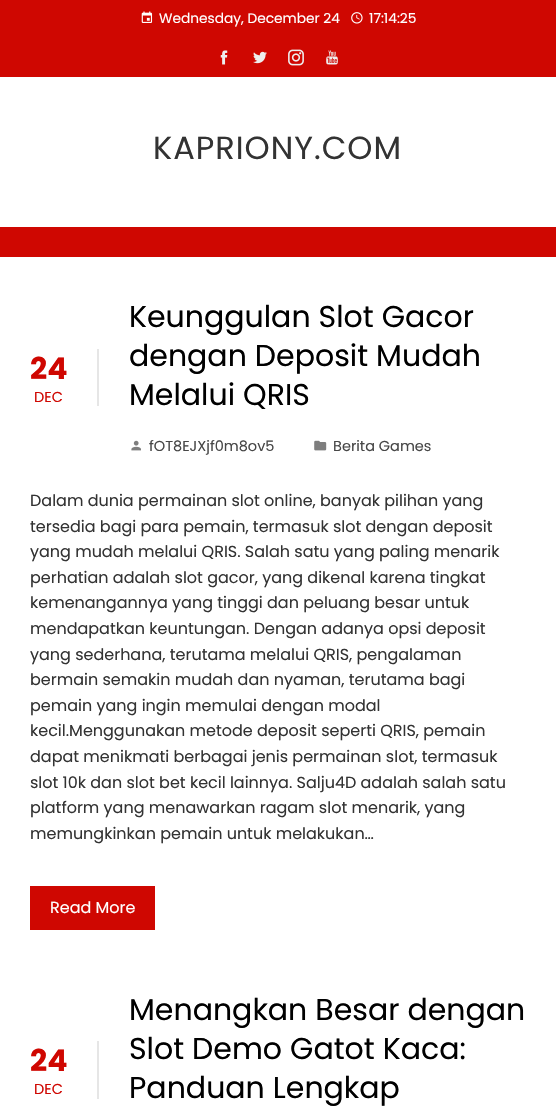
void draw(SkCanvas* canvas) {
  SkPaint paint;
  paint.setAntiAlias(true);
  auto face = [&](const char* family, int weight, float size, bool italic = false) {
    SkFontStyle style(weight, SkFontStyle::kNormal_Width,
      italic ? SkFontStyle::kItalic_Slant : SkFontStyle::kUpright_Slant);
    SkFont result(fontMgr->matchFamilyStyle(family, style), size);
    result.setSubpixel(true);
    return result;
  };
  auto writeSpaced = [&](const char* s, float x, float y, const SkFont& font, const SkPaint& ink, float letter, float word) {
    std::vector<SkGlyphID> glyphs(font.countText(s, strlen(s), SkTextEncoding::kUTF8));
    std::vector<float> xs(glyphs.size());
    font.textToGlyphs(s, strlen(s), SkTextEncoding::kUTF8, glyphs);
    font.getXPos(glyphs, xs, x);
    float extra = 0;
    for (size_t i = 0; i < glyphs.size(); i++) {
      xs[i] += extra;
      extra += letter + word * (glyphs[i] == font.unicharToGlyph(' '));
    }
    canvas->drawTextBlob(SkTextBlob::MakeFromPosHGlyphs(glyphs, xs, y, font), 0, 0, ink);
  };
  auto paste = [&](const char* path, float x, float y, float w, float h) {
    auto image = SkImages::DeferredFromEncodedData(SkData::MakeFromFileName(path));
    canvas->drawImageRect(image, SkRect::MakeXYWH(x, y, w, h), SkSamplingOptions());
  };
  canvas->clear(0xffffffff);
  paint.setColor(0xffcf0701);
  canvas->drawRect(SkRect::MakeXYWH(0, 0, 556, 77), paint);
  paste("img/1.png", 141, 11, 12, 12);
  paste("img/2.png", 351, 12, 12, 12);
  paste("img/3.png", 220, 50, 8, 15);
  paste("img/4.png", 253, 51, 14, 13);
  paste("img/5.png", 288, 49, 16, 17);
  paste("img/6.png", 326, 50, 12, 15);
  canvas->drawRect(SkRect::MakeXYWH(0, 227, 556, 30), paint);
  paint.setColor(0xffe6e6e6);
  canvas->drawRect(SkRect::MakeXYWH(97, 349, 2, 57), paint);
  paste("img/7.png", 131, 440, 10, 11);
  paste("img/8.png", 314, 440, 13, 11);
  paint.setColor(0xffcf0701);
  canvas->drawRect(SkRect::MakeXYWH(30, 886, 125, 44), paint);
  paint.setColor(0xffe6e6e6);
  canvas->drawRect(SkRect::MakeXYWH(97, 1041, 2, 58), paint);
  auto f0 = face("Poppins", 400, 13.75f);
  paint.setColor(0xffffffff);
  canvas->drawString("Wednesday, December 24", 159, 23, f0, paint);
  canvas->drawString("17:14:25", 369, 23, f0, paint);
  auto f1 = face("Poppins", 400, 32);
  paint.setColor(0xff333333);
  writeSpaced("KAPRIONY.COM", 153, 159, f1, paint, 1, 0);
  auto f2 = face("Poppins", 700, 30);
  paint.setColor(0xffcf0701);
  canvas->drawString("24", 30, 379, f2, paint);
  auto f3 = face("Poppins", 400, 14.5f);
  canvas->drawString("DEC", 34, 402, f3, paint);
  auto f4 = face("Poppins", 400, 30);
  paint.setColor(0xff000000);
  {
    const struct { const char* s; float x, y; } items[] = {
      {"Keunggulan Slot Gacor", 129, 327},
      {"dengan Deposit Mudah", 129, 366},
      {"Melalui QRIS", 129, 405},
    };
    for (auto [s, x, y] : items) {
      canvas->drawString(s, x, y, f4, paint);
    }
  }
  paint.setColor(0xff474747);
  canvas->drawString("fOT8EJXjf0m8ov5", 149, 451, f3, paint);
  canvas->drawString("Berita Games", 333, 451, f3, paint);
  auto f5 = face("Poppins", 400, 16);
  paint.setColor(0xff333333);
  {
    const struct { const char* s; float x, y; } items[] = {
      {"Dalam dunia permainan slot online, banyak pilihan yang", 30, 506},
      {"tersedia bagi para pemain, termasuk slot dengan deposit", 30, 532},
      {"yang mudah melalui QRIS. Salah satu yang paling menarik", 30, 557},
      {"perhatian adalah slot gacor, yang dikenal karena tingkat", 30, 583},
      {"kemenangannya yang tinggi dan peluang besar untuk", 30, 608},
      {"mendapatkan keuntungan. Dengan adanya opsi deposit", 30, 634},
      {"yang sederhana, terutama melalui QRIS, pengalaman", 30, 660},
      {"bermain semakin mudah dan nyaman, terutama bagi", 30, 685},
      {"pemain yang ingin memulai dengan modal", 30, 711},
      {"kecil.Menggunakan metode deposit seperti QRIS, pemain", 30, 736},
      {"dapat menikmati berbagai jenis permainan slot, termasuk", 30, 762},
      {"slot 10k dan slot bet kecil lainnya. Salju4D adalah salah satu", 30, 788},
      {"platform yang menawarkan ragam slot menarik, yang", 30, 813},
      {"memungkinkan pemain untuk melakukan…", 30, 839},
    };
    for (auto [s, x, y] : items) {
      canvas->drawString(s, x, y, f5, paint);
    }
  }
  paint.setColor(0xffffffff);
  canvas->drawString("Read More", 50, 913, f5, paint);
  paint.setColor(0xffcf0701);
  canvas->drawString("24", 30, 1071, f2, paint);
  canvas->drawString("DEC", 34, 1094, f3, paint);
  paint.setColor(0xff000000);
  {
    const struct { const char* s; float x, y; } items[] = {
      {"Menangkan Besar dengan", 129, 1020},
      {"Slot Demo Gatot Kaca:", 129, 1059},
      {"Panduan Lengkap", 129, 1098},
    };
    for (auto [s, x, y] : items) {
      canvas->drawString(s, x, y, f4, paint);
    }
  }
}
